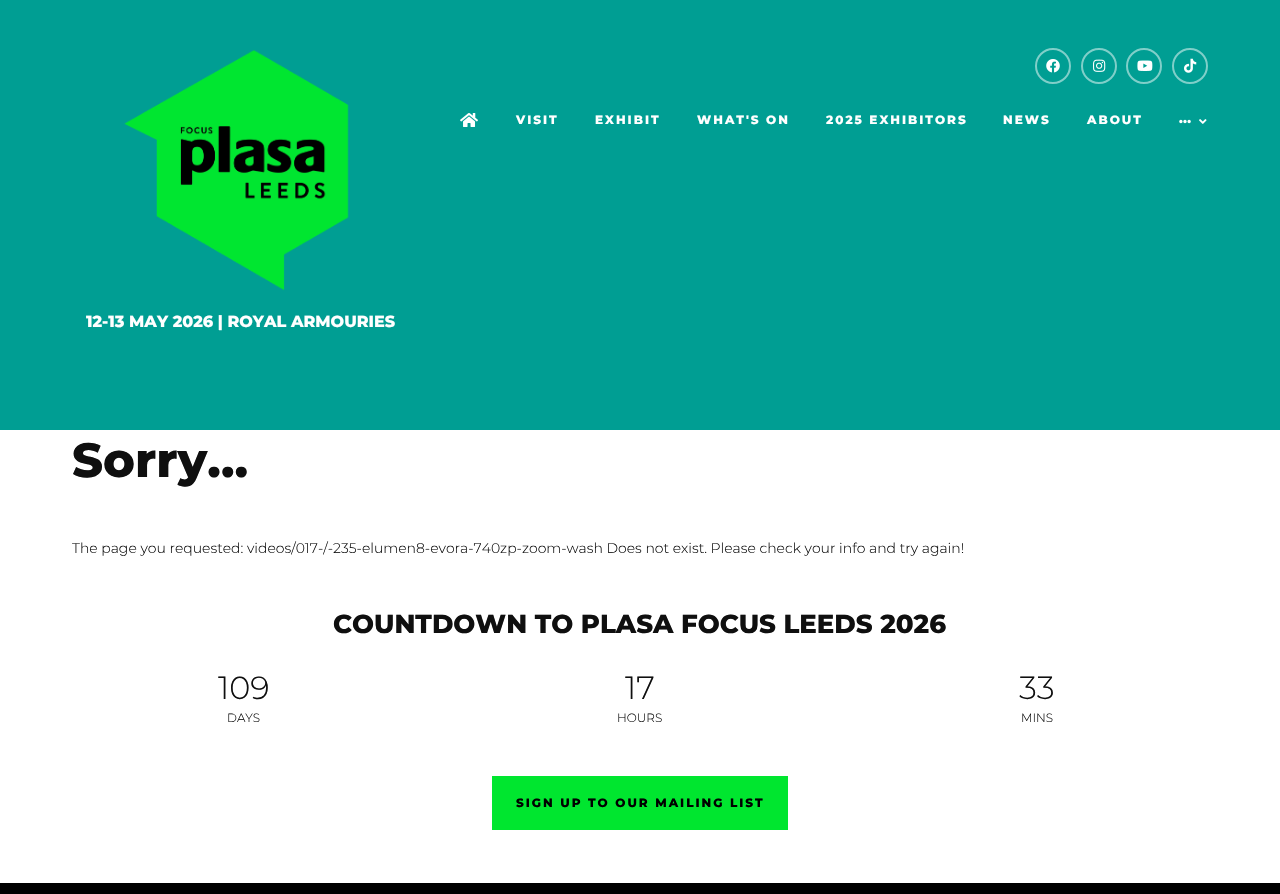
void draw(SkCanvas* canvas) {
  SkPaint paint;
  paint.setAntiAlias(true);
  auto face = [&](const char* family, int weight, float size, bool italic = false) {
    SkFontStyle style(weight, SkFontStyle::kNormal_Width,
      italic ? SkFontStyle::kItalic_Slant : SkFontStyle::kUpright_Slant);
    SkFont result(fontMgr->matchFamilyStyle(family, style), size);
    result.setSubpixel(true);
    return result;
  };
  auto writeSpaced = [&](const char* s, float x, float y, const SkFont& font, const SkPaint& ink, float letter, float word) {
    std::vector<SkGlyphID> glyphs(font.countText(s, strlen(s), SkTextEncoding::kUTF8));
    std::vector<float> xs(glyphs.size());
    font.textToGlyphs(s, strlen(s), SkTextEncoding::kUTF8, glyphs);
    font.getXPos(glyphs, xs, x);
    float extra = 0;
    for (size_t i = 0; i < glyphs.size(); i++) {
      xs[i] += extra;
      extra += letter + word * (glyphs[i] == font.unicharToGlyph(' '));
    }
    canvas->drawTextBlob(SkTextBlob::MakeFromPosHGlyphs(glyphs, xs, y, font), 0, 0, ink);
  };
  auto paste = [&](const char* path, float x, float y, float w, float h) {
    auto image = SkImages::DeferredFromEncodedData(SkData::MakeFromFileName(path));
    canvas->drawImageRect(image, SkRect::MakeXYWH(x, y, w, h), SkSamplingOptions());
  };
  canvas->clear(0xffffffff);
  paint.setColor(0xff009e93);
  canvas->drawRect(SkRect::MakeXYWH(0, 0, 1280, 430), paint);
  paint.setStroke(true);
  paint.setStrokeWidth(2);
  paint.setColor(0xff80cfc9);
  canvas->drawCircle(1053, 66, 17, paint);
  paste("img/1.png", 1046, 59, 14, 14);
  canvas->drawCircle(1099, 66, 17, paint);
  paste("img/2.png", 1093, 59, 13, 13);
  canvas->drawCircle(1144, 66, 17, paint);
  paste("img/3.png", 1137, 60, 16, 11);
  canvas->drawCircle(1190, 66, 17, paint);
  paste("img/4.png", 1184, 58, 13, 15);
  paste("img/5.png", 460, 113, 18, 14);
  paste("img/6.png", 1179, 119, 12, 5);
  paste("img/7.png", 1199, 119, 8, 5);
  paste("img/8.png", 124, 49, 225, 242);
  paint.setStroke(false);
  paint.setColor(0xff00e62f);
  canvas->drawRect(SkRect::MakeXYWH(492, 776, 296, 54), paint);
  paint.setColor(0xff000000);
  canvas->drawRect(SkRect::MakeXYWH(0, 883, 1280, 11), paint);
  auto f0 = face("Montserrat", 800, 12);
  paint.setColor(0xffffffff);
  {
    const struct { const char* s; float x, y; } items[] = {
      {"VISIT", 516, 124},
      {"EXHIBIT", 595, 124},
      {"WHAT'S ON", 697, 124},
      {"2025 EXHIBITORS", 826, 124},
      {"NEWS", 1003, 124},
      {"ABOUT", 1087, 124},
    };
    for (auto [s, x, y] : items) {
      writeSpaced(s, x, y, f0, paint, 2, 0);
    }
  }
  auto f1 = face("Montserrat", 800, 16);
  canvas->drawString("12-13 MAY 2026 | ROYAL ARMOURIES", 86, 327, f1, paint);
  auto f2 = face("Montserrat", 800, 48);
  paint.setColor(0xff0f0f0f);
  canvas->drawString("Sorry...", 72, 477, f2, paint);
  auto f3 = face("Montserrat", 300, 14);
  canvas->drawString("The page you requested: videos/017-/-235-elumen8-evora-740zp-zoom-wash Does not exist. Please check your info and try again!", 72, 553, f3, paint);
  auto f4 = face("Montserrat", 800, 26);
  canvas->drawString("COUNTDOWN TO PLASA FOCUS LEEDS 2026", 333, 633, f4, paint);
  auto f5 = face("Montserrat", 300, 32);
  canvas->drawString("109", 218, 699, f5, paint);
  auto f6 = face("Montserrat", 300, 12);
  canvas->drawString("DAYS", 227, 722, f6, paint);
  canvas->drawString("17", 625, 699, f5, paint);
  canvas->drawString("HOURS", 617, 722, f6, paint);
  canvas->drawString("33", 1019, 699, f5, paint);
  canvas->drawString("MINS", 1021, 722, f6, paint);
  paint.setColor(0xff000000);
  writeSpaced("SIGN UP TO OUR MAILING LIST", 516, 807, f0, paint, 2, 0);
}
